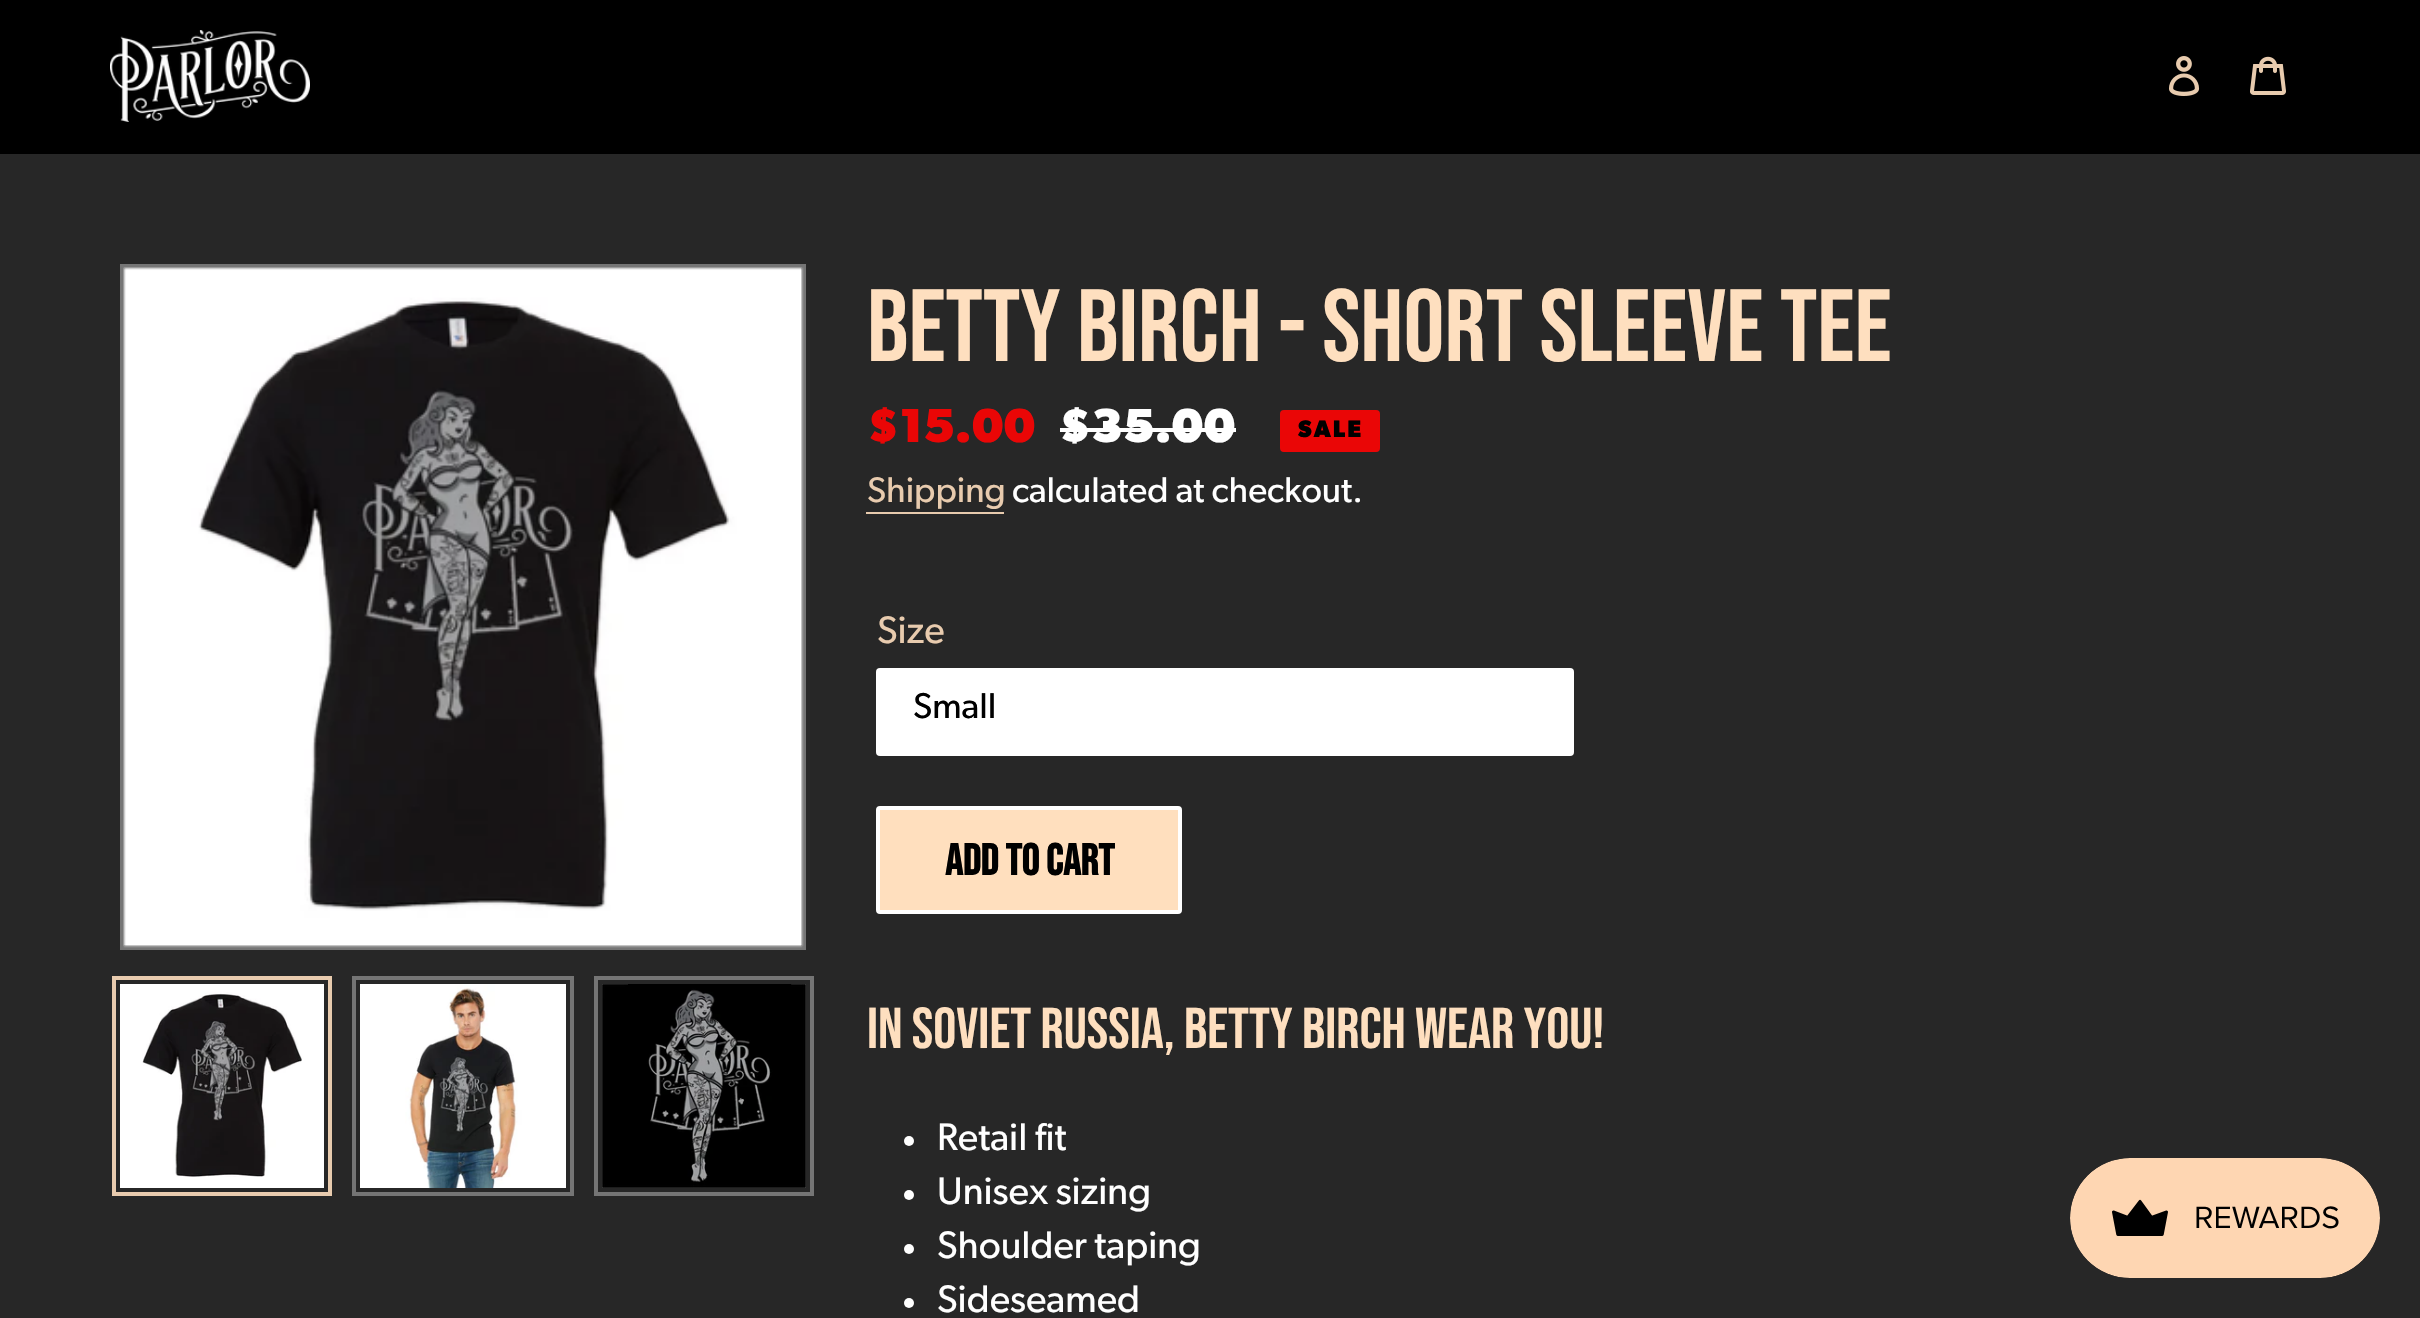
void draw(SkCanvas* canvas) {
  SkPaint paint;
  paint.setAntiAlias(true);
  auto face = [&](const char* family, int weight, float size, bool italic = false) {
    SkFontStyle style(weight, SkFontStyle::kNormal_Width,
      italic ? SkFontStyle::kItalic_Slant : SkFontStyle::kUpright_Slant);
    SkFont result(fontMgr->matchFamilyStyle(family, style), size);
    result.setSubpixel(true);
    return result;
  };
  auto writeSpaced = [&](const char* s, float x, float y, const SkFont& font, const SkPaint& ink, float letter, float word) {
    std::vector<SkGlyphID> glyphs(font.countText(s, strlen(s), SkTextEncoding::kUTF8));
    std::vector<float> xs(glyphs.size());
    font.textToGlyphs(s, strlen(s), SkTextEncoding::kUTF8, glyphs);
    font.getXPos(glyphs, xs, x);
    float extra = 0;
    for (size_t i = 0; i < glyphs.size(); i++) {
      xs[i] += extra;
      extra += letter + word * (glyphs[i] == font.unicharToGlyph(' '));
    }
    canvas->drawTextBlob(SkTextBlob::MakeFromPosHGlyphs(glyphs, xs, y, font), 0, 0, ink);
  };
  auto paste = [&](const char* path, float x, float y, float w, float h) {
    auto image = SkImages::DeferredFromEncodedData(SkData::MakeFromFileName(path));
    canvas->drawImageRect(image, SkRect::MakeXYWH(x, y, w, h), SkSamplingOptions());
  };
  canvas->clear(0xff272727);
  paint.setColor(0xff000000);
  canvas->drawRect(SkRect::MakeXYWH(0, 0, 2420, 154), paint);
  paste("img/1.png", 110, 30, 200, 92);
  paste("img/2.png", 2169, 56, 31, 40);
  paste("img/3.png", 2250, 56, 36, 39);
  paint.setStroke(true);
  paint.setStrokeWidth(4);
  paint.setColor(0xff757575);
  canvas->drawRect(SkRect::MakeXYWH(122, 266, 682, 682), paint);
  paste("img/4.png", 123, 267, 681, 681);
  paint.setColor(0xffe8cbae);
  canvas->drawRect(SkRect::MakeXYWH(114, 978, 216, 216), paint);
  paste("img/5.png", 120, 984, 204, 204);
  paint.setColor(0xff757575);
  canvas->drawRect(SkRect::MakeXYWH(354, 978, 218, 216), paint);
  paste("img/6.png", 360, 984, 206, 204);
  canvas->drawRect(SkRect::MakeXYWH(596, 978, 216, 216), paint);
  paste("img/7.png", 602, 984, 204, 204);
  paint.setStroke(false);
  paint.setColor(0xffffffff);
  canvas->drawRect(SkRect::MakeXYWH(1060, 428, 176, 4), paint);
  paint.setColor(0xffea0606);
  canvas->drawRoundRect(SkRect::MakeXYWH(1281, 411, 98, 40), 3, 3, paint);
  paint.setStroke(true);
  paint.setStrokeWidth(2);
  canvas->drawRoundRect(SkRect::MakeXYWH(1281, 411, 98, 40), 3, 3, paint);
  paint.setStroke(false);
  paint.setColor(0xffe8cbae);
  canvas->drawRect(SkRect::MakeXYWH(866, 512, 138, 2), paint);
  paint.setColor(0xffffffff);
  canvas->drawRoundRect(SkRect::MakeXYWH(876, 668, 698, 88), 4, 4, paint);
  paint.setColor(0xffffdfbe);
  canvas->drawRoundRect(SkRect::MakeXYWH(878, 808, 302, 104), 2, 2, paint);
  paint.setStroke(true);
  paint.setStrokeWidth(4);
  paint.setColor(0xffffffff);
  canvas->drawRoundRect(SkRect::MakeXYWH(878, 808, 302, 104), 2, 2, paint);
  paint.setStroke(false);
  canvas->drawCircle(909, 1141, 5, paint);
  canvas->drawCircle(909, 1195, 5, paint);
  canvas->drawCircle(909, 1249, 5, paint);
  canvas->drawCircle(909, 1303, 5, paint);
  paste("img/8.png", 2070, 1158, 310, 120);
  auto f0 = face("Bebas Neue", 400, 102.5f);
  paint.setColor(0xfffedfbf);
  canvas->drawString("Betty Birch - Short Sleeve Tee", 867, 361, f0, paint);
  auto f1 = face("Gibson", 700, 48);
  paint.setColor(0xffea0606);
  canvas->drawString("$15.00", 867, 442, f1, paint);
  paint.setColor(0xffffffff);
  canvas->drawString("$35.00", 1059, 442, f1, paint);
  auto f2 = face("Gibson", 700, 24);
  paint.setColor(0xff000000);
  writeSpaced("SALE", 1298, 437, f2, paint, 2, 0);
  auto f3 = face("Gibson", 400, 35.75f);
  paint.setColor(0xffe8cbae);
  canvas->drawString("Shipping", 867, 502, f3, paint);
  paint.setColor(0xffffffff);
  canvas->drawString("calculated at checkout.", 1012, 502, f3, paint);
  auto f4 = face("Gibson", 400, 38.5f);
  paint.setColor(0xffe8cbae);
  canvas->drawString("Size", 877, 643, f4, paint);
  auto f5 = face("Gibson", 400, 36);
  paint.setColor(0xff000000);
  canvas->drawString("Small", 913, 718, f5, paint);
  auto f6 = face("Bebas Neue", 700, 44);
  canvas->drawString("ADD TO CART", 945, 875, f6, paint);
  auto f7 = face("Bebas Neue", 400, 57.6f);
  paint.setColor(0xfffedfbf);
  canvas->drawString("In Soviet Russia, Betty Birch wear you!", 867, 1048, f7, paint);
  paint.setColor(0xffffffff);
  {
    const struct { const char* s; float x, y; } items[] = {
      {"Retail fit", 937, 1150},
      {"Unisex sizing", 937, 1204},
      {"Shoulder taping", 937, 1258},
      {"Sideseamed", 937, 1312},
    };
    for (auto [s, x, y] : items) {
      canvas->drawString(s, x, y, f4, paint);
    }
  }
}
